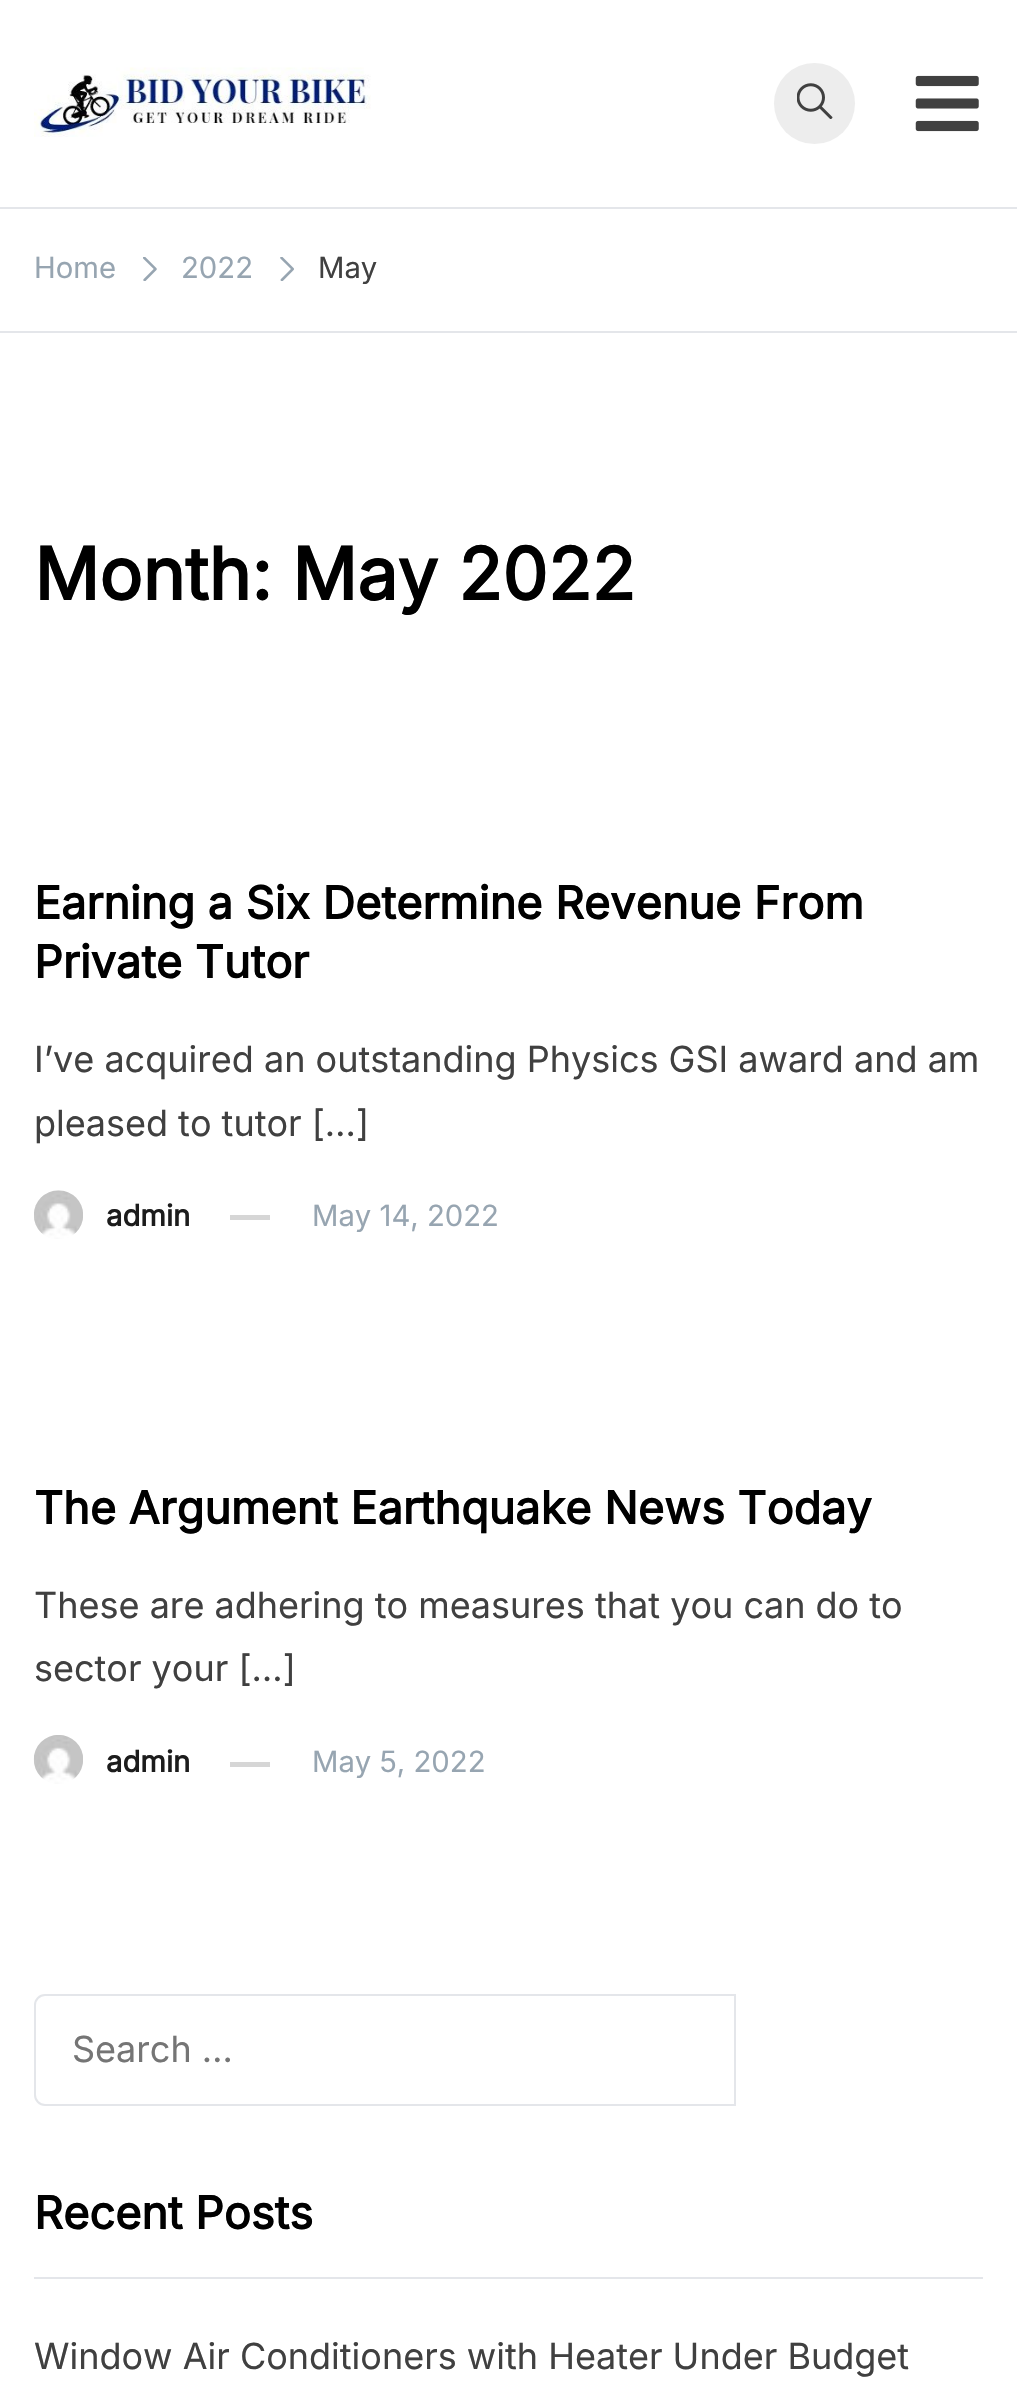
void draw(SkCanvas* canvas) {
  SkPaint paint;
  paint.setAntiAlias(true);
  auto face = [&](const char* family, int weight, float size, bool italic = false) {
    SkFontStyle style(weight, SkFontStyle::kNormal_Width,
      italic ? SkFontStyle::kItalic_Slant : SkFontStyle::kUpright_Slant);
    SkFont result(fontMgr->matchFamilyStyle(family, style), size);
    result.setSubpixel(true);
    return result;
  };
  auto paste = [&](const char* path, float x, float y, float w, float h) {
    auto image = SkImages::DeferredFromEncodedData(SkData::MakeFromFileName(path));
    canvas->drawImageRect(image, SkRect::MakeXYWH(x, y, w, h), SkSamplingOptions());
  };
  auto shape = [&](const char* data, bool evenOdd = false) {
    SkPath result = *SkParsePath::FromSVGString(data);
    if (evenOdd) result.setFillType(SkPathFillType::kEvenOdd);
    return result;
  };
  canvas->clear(0xffffffff);
  paint.setColor(0xffe4e6ea);
  canvas->drawRect(SkRect::MakeXYWH(0, 207, 1017, 2), paint);
  paste("img/1.png", 34, 67, 337, 70);
  paint.setColor(0xffededed);
  canvas->drawCircle(814.5f, 103.5f, 40.5f, paint);
  paste("img/2.png", 797, 83, 36, 36);
  paste("img/3.png", 915, 75, 64, 57);
  paint.setColor(0xffe4e6ea);
  canvas->drawRect(SkRect::MakeXYWH(0, 331, 1017, 2), paint);
  paste("img/4.png", 143, 257, 14, 24);
  paste("img/5.png", 280, 257, 14, 24);
  paste("img/6.png", 34, 1190, 49, 49);
  paint.setColor(0xffd6d6d6);
  canvas->drawRect(SkRect::MakeXYWH(230, 1215, 40, 5), paint);
  paste("img/7.png", 33, 1735, 50, 49);
  canvas->drawRect(SkRect::MakeXYWH(230, 1762, 40, 5), paint);
  paint.setStroke(true);
  paint.setStrokeWidth(2);
  paint.setColor(0xffe4e6ea);
  canvas->drawPath(shape("M45 1995H735V2105H45C39.5 2105 35 2100.5 35 2095V2005C35 1999.5 39.5 1995 45 1995Z"), paint);
  paint.setStroke(false);
  canvas->drawRect(SkRect::MakeXYWH(34, 2277, 949, 2), paint);
  auto f0 = face("Inter", 400, 29.25f);
  paint.setColor(0xff97a5b1);
  canvas->drawString("Home", 34, 278, f0, paint);
  canvas->drawString("2022", 181, 278, f0, paint);
  paint.setColor(0xff404040);
  canvas->drawString("May", 318, 278, f0, paint);
  auto f1 = face("Inter", 700, 72);
  paint.setColor(0xff000000);
  canvas->drawString("Month: May 2022", 34, 600, f1, paint);
  auto f2 = face("Inter", 700, 45);
  canvas->drawString("Earning a Six Determine Revenue From", 34, 919, f2, paint);
  canvas->drawString("Private Tutor", 34, 978, f2, paint);
  auto f3 = face("Inter", 400, 36);
  paint.setColor(0xff404040);
  canvas->drawString("I’ve acquired an outstanding Physics GSI award and am", 34, 1072, f3, paint);
  canvas->drawString("pleased to tutor […]", 34, 1136, f3, paint);
  auto f4 = face("Inter", 700, 29.25f);
  paint.setColor(0xff1c1c1c);
  canvas->drawString("admin", 106, 1226, f4, paint);
  paint.setColor(0xff97a5b1);
  canvas->drawString("May 14, 2022", 312, 1226, f0, paint);
  paint.setColor(0xff000000);
  canvas->drawString("The Argument Earthquake News Today", 34, 1524, f2, paint);
  paint.setColor(0xff404040);
  canvas->drawString("These are adhering to measures that you can do to", 34, 1618, f3, paint);
  canvas->drawString("sector your […]", 34, 1681, f3, paint);
  paint.setColor(0xff1c1c1c);
  canvas->drawString("admin", 106, 1772, f4, paint);
  paint.setColor(0xff97a5b1);
  canvas->drawString("May 5, 2022", 312, 1772, f0, paint);
  paint.setColor(0xff757575);
  canvas->drawString("Search …", 72, 2062, f3, paint);
  paint.setColor(0xff000000);
  canvas->drawString("Recent Posts", 34, 2229, f2, paint);
  paint.setColor(0xff404040);
  canvas->drawString("Window Air Conditioners with Heater Under Budget", 34, 2369, f3, paint);
}
